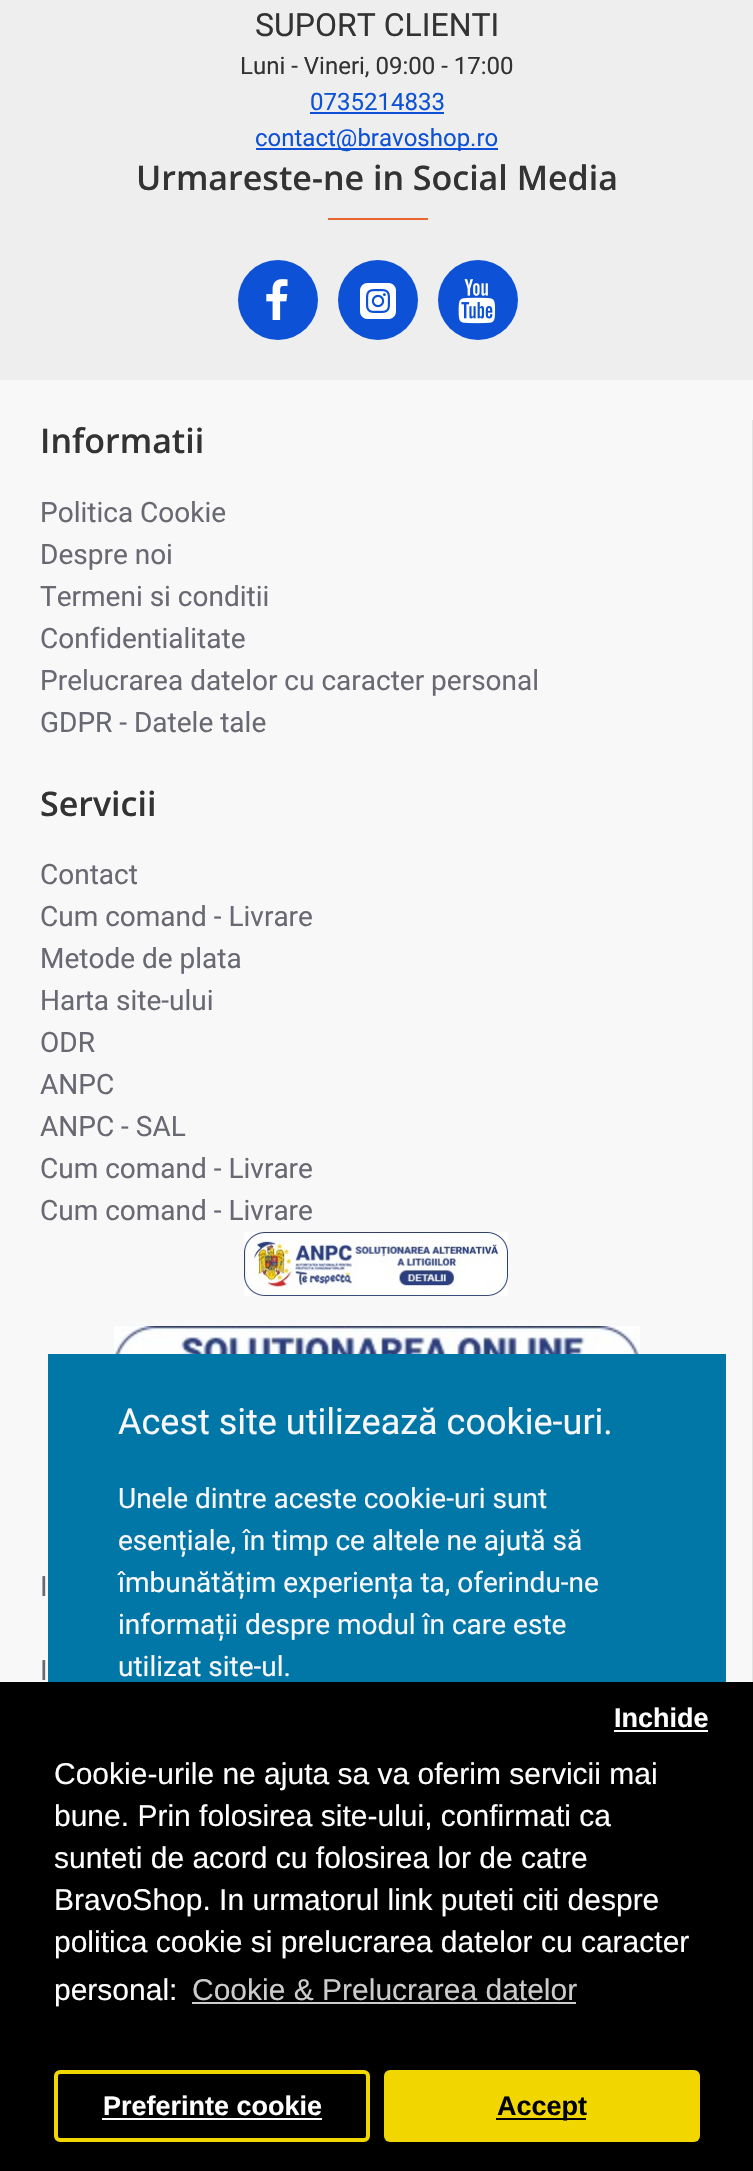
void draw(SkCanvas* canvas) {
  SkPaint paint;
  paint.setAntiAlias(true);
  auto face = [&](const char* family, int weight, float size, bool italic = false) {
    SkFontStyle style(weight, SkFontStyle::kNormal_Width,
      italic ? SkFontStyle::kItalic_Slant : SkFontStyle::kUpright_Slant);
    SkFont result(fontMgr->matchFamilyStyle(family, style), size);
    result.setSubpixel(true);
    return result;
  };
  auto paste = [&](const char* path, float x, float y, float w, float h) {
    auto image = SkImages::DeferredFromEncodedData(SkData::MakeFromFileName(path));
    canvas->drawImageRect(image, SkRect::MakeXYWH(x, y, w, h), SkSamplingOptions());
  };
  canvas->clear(0xfff8f8f8);
  {
    const struct { float x, y, w, h; SkColor color; } items[] = {
      {0, 0, 753, 380, 0xffeeeeee},
      {310, 112, 134, 2, 0xff0d52d6},
      {256, 148, 242, 2, 0xff0d52d6},
      {328, 218, 100, 2, 0xffe96631},
    };
    for (auto [x, y, w, h, color] : items) {
      paint.setColor(color);
      canvas->drawRect(SkRect::MakeXYWH(x, y, w, h), paint);
    }
  }
  paint.setColor(0xff0d52d6);
  canvas->drawCircle(278, 300, 40, paint);
  paste("img/1.png", 266, 279, 22, 41);
  canvas->drawCircle(378, 300, 40, paint);
  paste("img/2.png", 360, 283, 36, 36);
  canvas->drawCircle(478, 300, 40, paint);
  paste("img/3.png", 458, 279, 38, 45);
  paint.setColor(0xffe2e2e2);
  canvas->drawRect(SkRect::MakeXYWH(752, 420, 1, 1262), paint);
  paste("img/4.png", 244, 1232, 264, 64);
  paste("img/5.png", 114, 1326, 526, 28);
  {
    const struct { float x, y, w, h; SkColor color; } items[] = {
      {48, 1354, 678, 328, 0xff0077a7},
      {0, 1682, 753, 489, 0xff000000},
      {614, 1730, 94, 2, 0xffffffff},
    };
    for (auto [x, y, w, h, color] : items) {
      paint.setColor(color);
      canvas->drawRect(SkRect::MakeXYWH(x, y, w, h), paint);
    }
  }
  paint.setStroke(true);
  paint.setStrokeWidth(4);
  paint.setColor(0xfff1d600);
  canvas->drawRoundRect(SkRect::MakeXYWH(56, 2072, 312, 68), 4, 4, paint);
  paint.setStroke(false);
  paint.setColor(0xffffffff);
  canvas->drawRect(SkRect::MakeXYWH(102, 2118, 220, 2), paint);
  paint.setColor(0xfff1d600);
  canvas->drawRoundRect(SkRect::MakeXYWH(384, 2070, 316, 72), 6, 6, paint);
  paint.setColor(0xff000000);
  canvas->drawRect(SkRect::MakeXYWH(496, 2118, 90, 2), paint);
  paint.setColor(0xffcccccc);
  canvas->drawRect(SkRect::MakeXYWH(192, 2002, 384, 2), paint);
  auto f0 = face("Roboto", 400, 32);
  paint.setColor(0xff333333);
  canvas->drawString("SUPORT CLIENTI", 255, 36, f0, paint);
  auto f1 = face("Roboto", 400, 24);
  canvas->drawString("Luni - Vineri, 09:00 - 17:00", 240, 74, f1, paint);
  paint.setColor(0xff0d52d6);
  canvas->drawString("0735214833", 310, 110, f1, paint);
  canvas->drawString("contact@bravoshop.ro", 255, 146, f1, paint);
  auto f2 = face("Open Sans", 600, 34);
  paint.setColor(0xff333333);
  canvas->drawString("Urmareste-ne in Social Media", 136, 190, f2, paint);
  canvas->drawString("Informatii", 40, 453, f2, paint);
  auto f3 = face("Roboto", 400, 28);
  paint.setColor(0xff696973);
  {
    const struct { const char* s; float x, y; } items[] = {
      {"Politica Cookie", 40, 522},
      {"Despre noi", 40, 564},
      {"Termeni si conditii", 40, 606},
      {"Confidentialitate", 40, 648},
      {"Prelucrarea datelor cu caracter personal", 40, 690},
      {"GDPR - Datele tale", 40, 732},
    };
    for (auto [s, x, y] : items) {
      canvas->drawString(s, x, y, f3, paint);
    }
  }
  paint.setColor(0xff333333);
  canvas->drawString("Servicii", 40, 816, f2, paint);
  paint.setColor(0xff696973);
  {
    const struct { const char* s; float x, y; } items[] = {
      {"Contact", 40, 884},
      {"Cum comand - Livrare", 40, 926},
      {"Metode de plata", 40, 968},
      {"Harta site-ului", 40, 1010},
      {"ODR", 40, 1052},
      {"ANPC", 40, 1094},
      {"ANPC - SAL", 40, 1136},
      {"Cum comand - Livrare", 40, 1178},
      {"Cum comand - Livrare", 40, 1220},
      {"I", 40, 1596},
      {"I", 40, 1680},
    };
    for (auto [s, x, y] : items) {
      canvas->drawString(s, x, y, f3, paint);
    }
  }
  auto f4 = face("Roboto", 400, 36);
  paint.setColor(0xfffaf7fa);
  canvas->drawString("Acest site utilizează cookie-uri.", 118, 1434, f4, paint);
  {
    const struct { const char* s; float x, y; } items[] = {
      {"Unele dintre aceste cookie-uri sunt", 118, 1508},
      {"esențiale, în timp ce altele ne ajută să", 118, 1550},
      {"îmbunătățim experiența ta, oferindu-ne", 118, 1592},
      {"informații despre modul în care este", 118, 1634},
      {"utilizat site-ul.", 118, 1676},
    };
    for (auto [s, x, y] : items) {
      canvas->drawString(s, x, y, f3, paint);
    }
  }
  auto f5 = face("Liberation Sans", 700, 27);
  paint.setColor(0xffffffff);
  canvas->drawString("Inchide", 614, 1727, f5, paint);
  canvas->drawString("Preferinte cookie", 103, 2115, f5, paint);
  paint.setColor(0xff000000);
  canvas->drawString("Accept", 497, 2115, f5, paint);
  auto f6 = face("Liberation Sans", 400, 30);
  paint.setColor(0xffffffff);
  {
    const struct { const char* s; float x, y; } items[] = {
      {"Cookie-urile ne ajuta sa va oferim servicii mai", 54, 1784},
      {"bune. Prin folosirea site-ului, confirmati ca", 54, 1826},
      {"sunteti de acord cu folosirea lor de catre", 54, 1868},
      {"BravoShop. In urmatorul link puteti citi despre", 54, 1910},
      {"politica cookie si prelucrarea datelor cu caracter", 54, 1952},
      {"personal:", 54, 2000},
    };
    for (auto [s, x, y] : items) {
      canvas->drawString(s, x, y, f6, paint);
    }
  }
  paint.setColor(0xffcccccc);
  canvas->drawString("Cookie & Prelucrarea datelor", 192, 2000, f6, paint);
}
